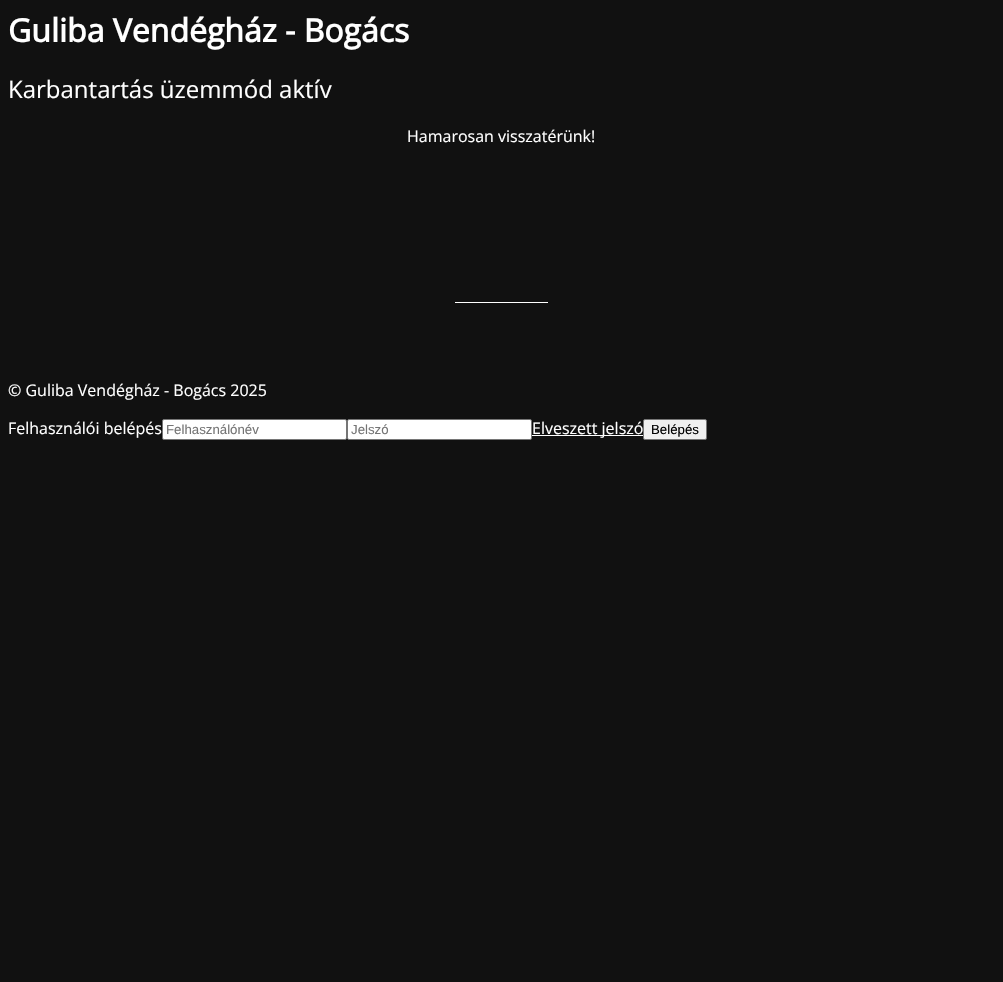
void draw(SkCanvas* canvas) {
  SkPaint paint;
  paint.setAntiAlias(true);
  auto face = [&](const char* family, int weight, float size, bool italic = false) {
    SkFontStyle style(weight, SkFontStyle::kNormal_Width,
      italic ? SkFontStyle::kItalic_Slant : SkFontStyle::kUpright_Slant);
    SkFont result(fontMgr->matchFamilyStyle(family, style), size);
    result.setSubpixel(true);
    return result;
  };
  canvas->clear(0xff111111);
  paint.setColor(0xffffffff);
  canvas->drawRect(SkRect::MakeXYWH(455, 302, 93, 1), paint);
  canvas->drawRoundRect(SkRect::MakeXYWH(162.5f, 419.5f, 184, 20), 1.5f, 1.5f, paint);
  paint.setStroke(true);
  paint.setStrokeWidth(1);
  paint.setColor(0xff767676);
  canvas->drawRoundRect(SkRect::MakeXYWH(162.5f, 419.5f, 184, 20), 1.5f, 1.5f, paint);
  paint.setStroke(false);
  paint.setColor(0xffffffff);
  canvas->drawRoundRect(SkRect::MakeXYWH(347.5f, 419.5f, 184, 20), 1.5f, 1.5f, paint);
  paint.setStroke(true);
  paint.setColor(0xff767676);
  canvas->drawRoundRect(SkRect::MakeXYWH(347.5f, 419.5f, 184, 20), 1.5f, 1.5f, paint);
  paint.setStroke(false);
  paint.setColor(0xffffffff);
  canvas->drawRect(SkRect::MakeXYWH(532, 435, 111, 1), paint);
  paint.setColor(0xffefefef);
  canvas->drawRoundRect(SkRect::MakeXYWH(643.5f, 419.5f, 63, 20), 1.5f, 1.5f, paint);
  paint.setStroke(true);
  paint.setColor(0xff767676);
  canvas->drawRoundRect(SkRect::MakeXYWH(643.5f, 419.5f, 63, 20), 1.5f, 1.5f, paint);
  auto f0 = face("Open Sans", 700, 32);
  paint.setStroke(false);
  paint.setColor(0xffffffff);
  canvas->drawString("Guliba Vendégház - Bogács", 8, 42, f0, paint);
  auto f1 = face("Open Sans", 400, 24);
  canvas->drawString("Karbantartás üzemmód aktív", 8, 98, f1, paint);
  auto f2 = face("Open Sans", 400, 16);
  {
    const struct { const char* s; float x, y; } items[] = {
      {"Hamarosan visszatérünk!", 407, 142},
      {"© Guliba Vendégház - Bogács 2025", 8, 396},
      {"Felhasználói belépés", 8, 434},
    };
    for (auto [s, x, y] : items) {
      canvas->drawString(s, x, y, f2, paint);
    }
  }
  auto f3 = face("Liberation Sans", 400, 13.25f);
  paint.setColor(0xff757575);
  canvas->drawString("Felhasználónév", 166, 434, f3, paint);
  canvas->drawString("Jelszó", 351, 434, f3, paint);
  paint.setColor(0xffffffff);
  canvas->drawString("Elveszett jelszó", 532, 434, f2, paint);
  paint.setColor(0xff000000);
  canvas->drawString("Belépés", 651, 434, f3, paint);
}
